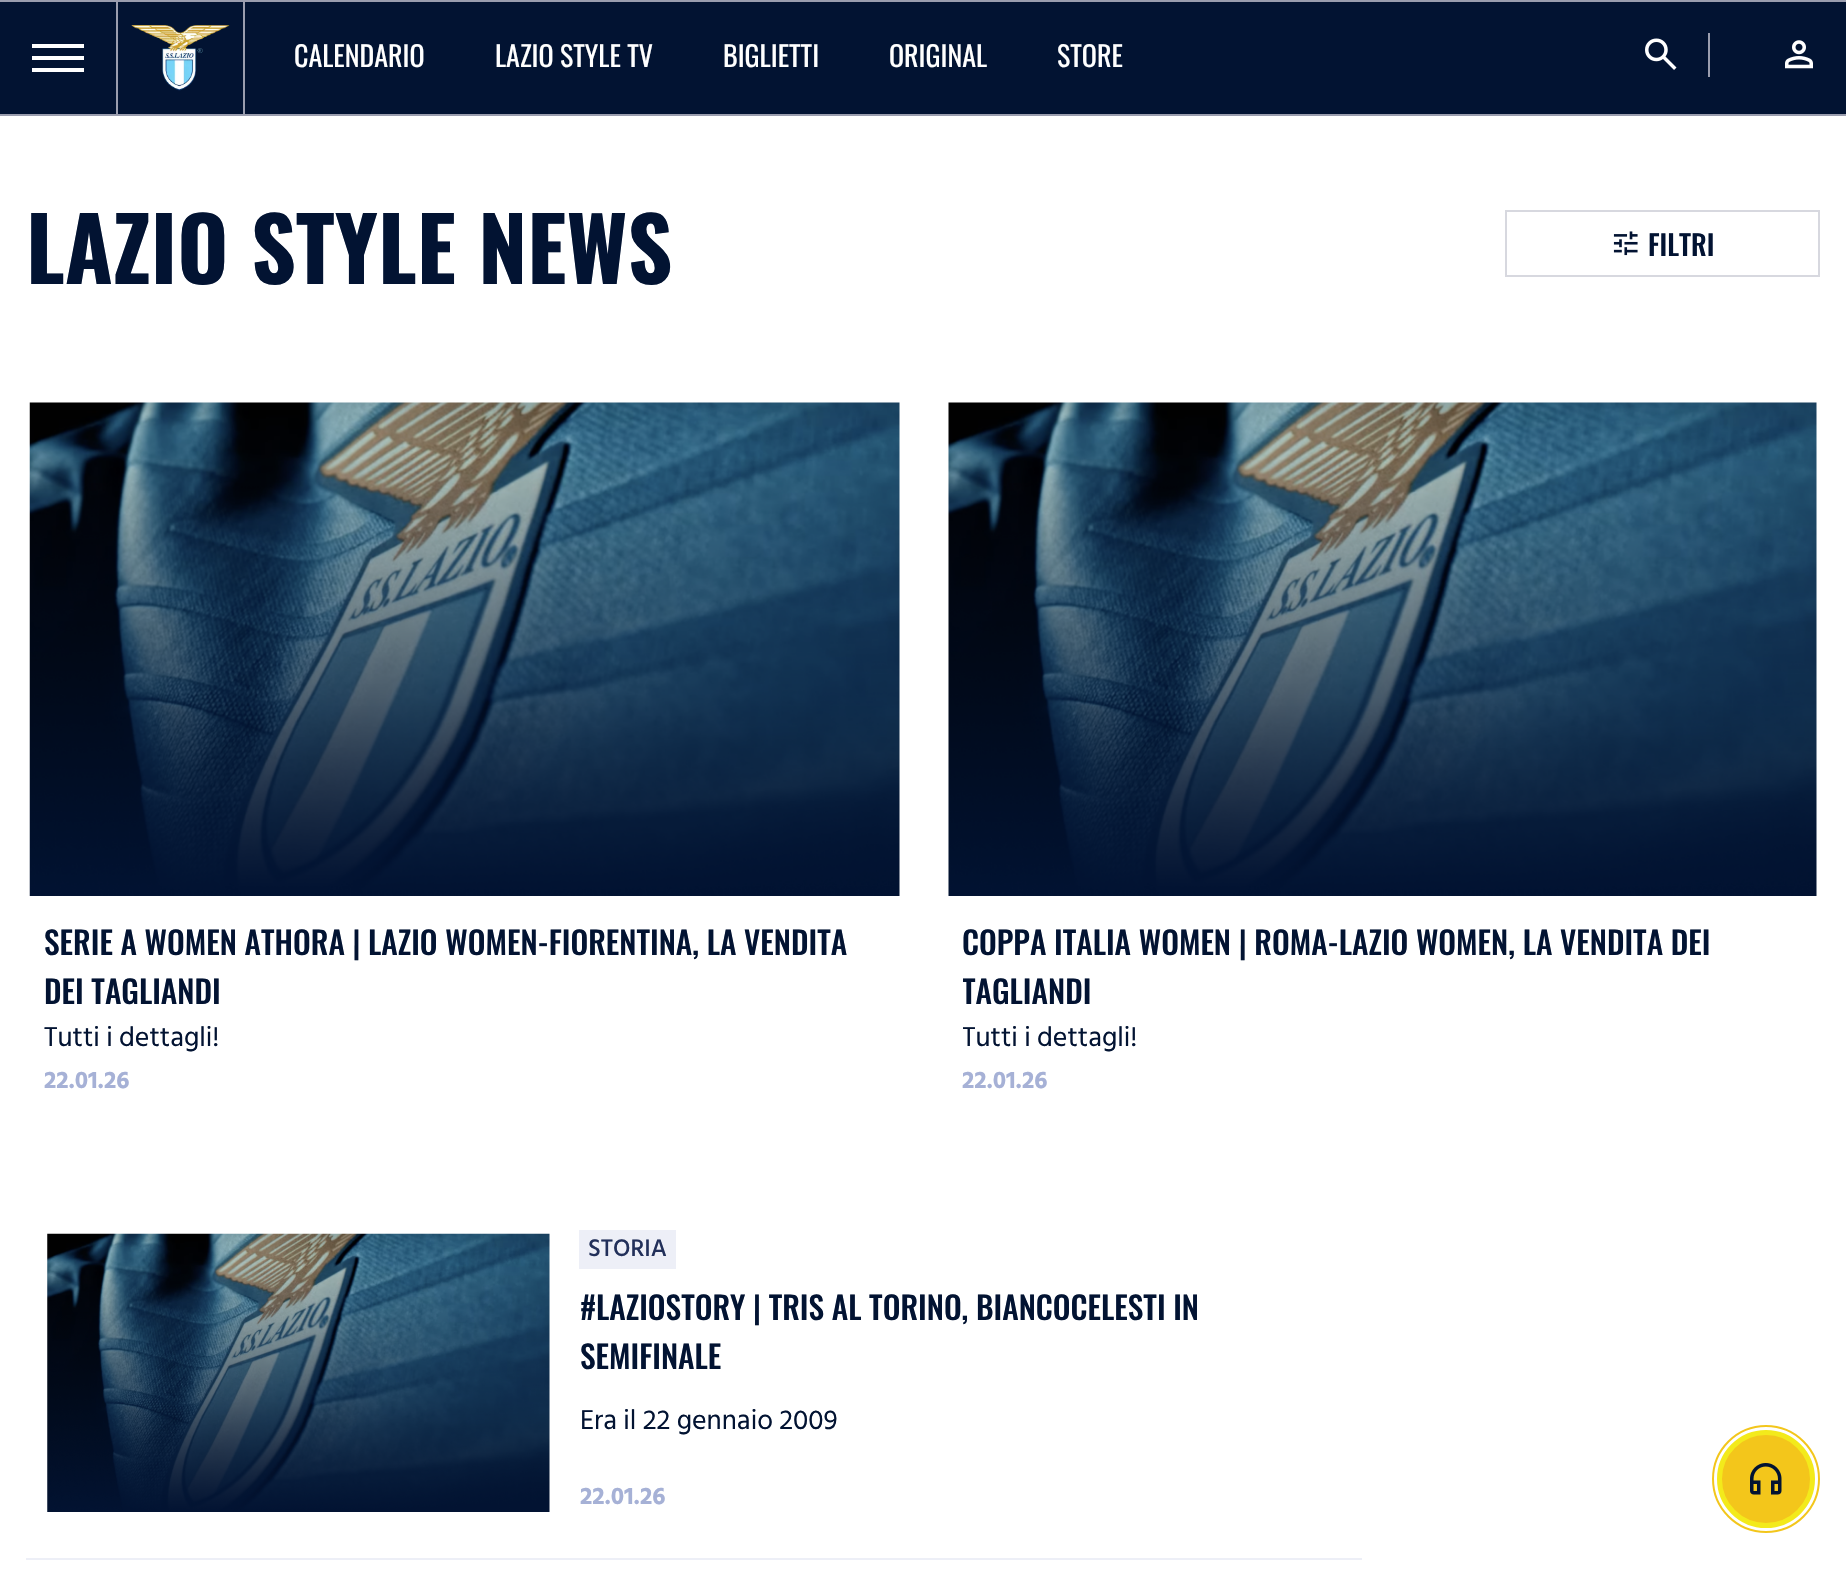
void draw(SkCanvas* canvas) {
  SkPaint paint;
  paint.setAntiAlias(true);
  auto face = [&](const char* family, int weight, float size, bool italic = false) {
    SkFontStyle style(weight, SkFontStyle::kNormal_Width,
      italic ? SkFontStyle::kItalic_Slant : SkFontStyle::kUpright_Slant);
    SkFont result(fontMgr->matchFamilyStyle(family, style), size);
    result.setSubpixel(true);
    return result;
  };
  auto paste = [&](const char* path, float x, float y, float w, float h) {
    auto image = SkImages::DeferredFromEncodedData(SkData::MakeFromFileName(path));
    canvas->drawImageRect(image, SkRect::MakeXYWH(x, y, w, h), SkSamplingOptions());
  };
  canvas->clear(0xffffffff);
  {
    const struct { float x, y, w, h; SkColor color; } items[] = {
      {0, 2, 1846, 112, 0xff021332},
      {0, 0, 1846, 2, 0xff9a9dae},
      {0, 114, 1846, 2, 0xff9a9dae},
      {32, 44, 52, 4, 0xffffffff},
      {32, 56, 52, 4, 0xffffffff},
      {32, 68, 52, 4, 0xffffffff},
      {243, 2, 2, 112, 0xff9a9dae},
      {116, 2, 2, 112, 0xff9a9dae},
    };
    for (auto [x, y, w, h, color] : items) {
      paint.setColor(color);
      canvas->drawRect(SkRect::MakeXYWH(x, y, w, h), paint);
    }
  }
  paste("img/1.png", 131, 25, 99, 66);
  canvas->drawRect(SkRect::MakeXYWH(1708, 33, 2, 44), paint);
  paste("img/2.png", 1645, 38, 32, 32);
  paste("img/3.png", 1785, 40, 28, 29);
  paint.setStroke(true);
  paint.setStrokeWidth(2);
  paint.setColor(0xffd7d8df);
  canvas->drawRect(SkRect::MakeXYWH(1506, 211, 313, 65), paint);
  paste("img/4.png", 1613, 231, 25, 25);
  paste("img/5.png", 29, 402, 871, 494);
  paste("img/6.png", 948, 402, 869, 494);
  paint.setStroke(false);
  paint.setColor(0xffedeff7);
  canvas->drawRect(SkRect::MakeXYWH(26, 1558, 1336, 2), paint);
  paste("img/7.png", 47, 1233, 503, 279);
  canvas->drawRect(SkRect::MakeXYWH(579, 1230, 97, 39), paint);
  paint.setStroke(true);
  paint.setColor(0xfff3c61b);
  canvas->drawCircle(1766, 1479, 53, paint);
  paint.setStroke(false);
  canvas->drawCircle(1766, 1479, 46.5f, paint);
  paint.setStroke(true);
  paint.setStrokeWidth(5);
  paint.setColor(0xfff3ea1b);
  canvas->drawCircle(1766, 1479, 46.5f, paint);
  paste("img/8.png", 1750, 1463, 32, 32);
  auto f0 = face("Oswald", 400, 28);
  paint.setStroke(false);
  paint.setColor(0xffffffff);
  {
    const struct { const char* s; float x, y; } items[] = {
      {"CALENDARIO", 294, 67},
      {"LAZIO STYLE TV", 495, 67},
      {"BIGLIETTI", 723, 67},
      {"ORIGINAL", 889, 67},
      {"STORE", 1057, 67},
    };
    for (auto [s, x, y] : items) {
      canvas->drawString(s, x, y, f0, paint);
    }
  }
  auto f1 = face("Oswald", 700, 87.5f);
  paint.setColor(0xff021332);
  canvas->drawString("LAZIO STYLE NEWS", 26, 284, f1, paint);
  auto f2 = face("Oswald", 500, 28);
  canvas->drawString("FILTRI", 1648, 256, f2, paint);
  auto f3 = face("Oswald", 500, 31.5f);
  canvas->drawString("SERIE A WOMEN ATHORA | LAZIO WOMEN-FIORENTINA, LA VENDITA", 44, 955, f3, paint);
  canvas->drawString("DEI TAGLIANDI", 44, 1004, f3, paint);
  auto f4 = face("Hind Siliguri", 400, 28);
  canvas->drawString("Tutti i dettagli!", 44, 1046, f4, paint);
  auto f5 = face("Hind Siliguri", 700, 24.5f);
  paint.setColor(0xffa6b1d6);
  canvas->drawString("22.01.26", 44, 1088, f5, paint);
  paint.setColor(0xff021332);
  canvas->drawString("COPPA ITALIA WOMEN | ROMA-LAZIO WOMEN, LA VENDITA DEI", 962, 955, f3, paint);
  canvas->save();
  canvas->clipRect(SkRect::MakeXYWH(963, 917, 840, 98));
  canvas->drawString("TAGLIANDI", 962, 1004, f3, paint);
  canvas->restore();
  canvas->save();
  canvas->clipRect(SkRect::MakeXYWH(963, 1015, 840, 46));
  canvas->drawString("Tutti i dettagli!", 962, 1046, f4, paint);
  canvas->restore();
  paint.setColor(0xffa6b1d6);
  canvas->drawString("22.01.26", 962, 1088, f5, paint);
  auto f6 = face("Hind Siliguri", 500, 24.5f);
  paint.setColor(0xff22305a);
  canvas->drawString("STORIA", 588, 1256, f6, paint);
  paint.setColor(0xff021332);
  canvas->drawString("#LAZIOSTORY | TRIS AL TORINO, BIANCOCELESTI IN", 580, 1320, f3, paint);
  canvas->drawString("SEMIFINALE", 580, 1369, f3, paint);
  canvas->drawString("Era il 22 gennaio 2009", 580, 1429, f4, paint);
  paint.setColor(0xffa6b1d6);
  canvas->drawString("22.01.26", 580, 1504, f5, paint);
}
